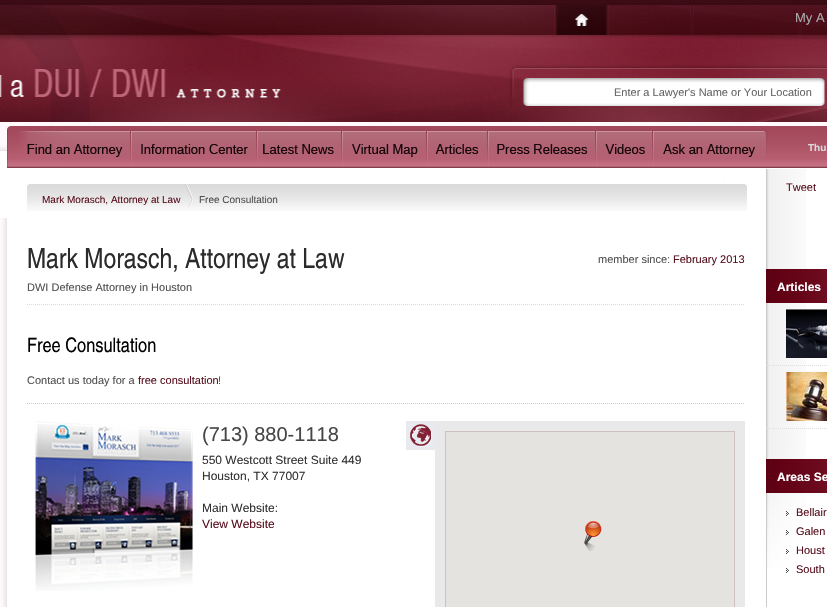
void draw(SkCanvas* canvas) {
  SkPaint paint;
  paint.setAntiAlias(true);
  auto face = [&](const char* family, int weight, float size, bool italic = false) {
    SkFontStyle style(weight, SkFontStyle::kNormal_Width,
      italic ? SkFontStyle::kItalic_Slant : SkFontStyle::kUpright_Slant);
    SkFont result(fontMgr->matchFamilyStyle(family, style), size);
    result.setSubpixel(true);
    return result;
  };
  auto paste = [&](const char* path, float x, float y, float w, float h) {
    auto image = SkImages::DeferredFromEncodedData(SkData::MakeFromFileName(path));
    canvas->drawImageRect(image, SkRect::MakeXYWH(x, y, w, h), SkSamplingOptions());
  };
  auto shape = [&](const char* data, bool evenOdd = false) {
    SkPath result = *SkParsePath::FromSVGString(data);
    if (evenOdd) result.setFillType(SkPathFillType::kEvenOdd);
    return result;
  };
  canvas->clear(0xfffafafa);
  paste("img/1.png", 0, 0, 827, 218);
  paste("img/2.png", 7, 126, 124, 42);
  paste("img/3.png", 131, 126, 126, 42);
  paste("img/4.png", 257, 126, 85, 42);
  paste("img/5.png", 342, 126, 85, 42);
  paste("img/6.png", 427, 126, 61, 42);
  paste("img/7.png", 488, 126, 108, 42);
  paste("img/8.png", 596, 126, 57, 42);
  paste("img/9.png", 653, 126, 114, 42);
  paste("img/10.png", 767, 126, 60, 42);
  paste("img/11.png", 2, 218, 825, 389);
  paste("img/12.png", 27, 184, 720, 27);
  paste("img/13.png", 185, 184, 9, 24);
  paint.setStroke(true);
  paint.setStrokeWidth(1);
  paint.setColor(0xffdadada);
  paint.setPathEffect(SkDashPathEffect::Make({{1, 1}}, 0));
  canvas->drawPath(shape("M27 304.5H745"), paint);
  paint.setPathEffect(nullptr);
  paint.setColor(0xffcccccc);
  paint.setPathEffect(SkDashPathEffect::Make({{1, 1}}, 0));
  canvas->drawPath(shape("M27 403.5H745"), paint);
  paint.setPathEffect(nullptr);
  paste("img/14.png", 35, 421, 158, 170);
  paint.setStroke(false);
  paint.setColor(0xffe9e9e9);
  canvas->drawRect(SkRect::MakeXYWH(435, 421, 310, 186), paint);
  paste("img/15.png", 406, 421, 29, 29);
  paint.setStroke(true);
  paint.setColor(0xffd0c0c0);
  canvas->drawRect(SkRect::MakeXYWH(445.5f, 431.5f, 289, 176), paint);
  paint.setStroke(false);
  paint.setColor(0xffe5e3df);
  canvas->drawRect(SkRect::MakeXYWH(446, 432, 288, 175), paint);
  paste("img/16.png", 584, 521, 18, 30);
  paste("img/17.png", 766, 169, 40, 438);
  paste("img/18.png", 766, 269, 61, 34);
  paint.setStroke(true);
  paint.setColor(0xffdddddd);
  paint.setPathEffect(SkDashPathEffect::Make({{1, 1}}, 0));
  canvas->drawPath(shape("M766 365.5H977"), paint);
  paint.setPathEffect(nullptr);
  paste("img/19.png", 786, 309, 41, 49);
  paint.setPathEffect(SkDashPathEffect::Make({{1, 1}}, 0));
  canvas->drawPath(shape("M766 428.5H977"), paint);
  paint.setPathEffect(nullptr);
  paste("img/20.png", 786, 372, 41, 49);
  paste("img/18.png", 766, 459, 61, 34);
  paste("img/21.png", 786, 511, 3, 5);
  paste("img/22.png", 786, 530, 3, 5);
  paste("img/23.png", 786, 549, 3, 5);
  paste("img/24.png", 786, 568, 3, 5);
  auto f0 = face("Liberation Sans", 400, 13);
  paint.setStroke(false);
  paint.setColor(0xffaaaaaa);
  canvas->drawString("My A", 795, 22, f0, paint);
  auto f1 = face("Liberation Sans", 400, 11);
  paint.setColor(0xff656565);
  canvas->drawString("Enter a Lawyer's Name or Your Location", 614, 96, f1, paint);
  auto f2 = face("Liberation Sans", 700, 10);
  paint.setColor(0xffdadada);
  canvas->drawString("Thu", 808, 151, f2, paint);
  auto f3 = face("Liberation Sans", 400, 10);
  paint.setColor(0xff58101f);
  canvas->drawString("Mark Morasch, Attorney at Law", 42, 203, f3, paint);
  paint.setColor(0xff505050);
  canvas->drawString("Free Consultation", 199, 203, f3, paint);
  auto f4 = face("TeX Gyre Heros Cn", 400, 28);
  paint.setColor(0xff2b2b2b);
  canvas->drawString("Mark Morasch, Attorney at Law", 27, 268, f4, paint);
  paint.setColor(0xff505050);
  canvas->drawString("member since:", 598, 263, f1, paint);
  paint.setColor(0xff58101f);
  canvas->drawString("February 2013", 673, 263, f1, paint);
  paint.setColor(0xff505050);
  canvas->drawString("DWI Defense Attorney in Houston", 27, 291, f1, paint);
  auto f5 = face("TeX Gyre Heros Cn", 400, 20);
  paint.setColor(0xff000000);
  canvas->drawString("Free Consultation", 27, 352, f5, paint);
  paint.setColor(0xff505050);
  canvas->drawString("Contact us today for a", 27, 384, f1, paint);
  paint.setColor(0xff58101f);
  canvas->drawString("free consultation", 138, 384, f1, paint);
  paint.setColor(0xff505050);
  canvas->drawString("!", 218, 384, f1, paint);
  auto f6 = face("Liberation Sans", 400, 20);
  paint.setColor(0xff464646);
  canvas->drawString("(713) 880-1118", 202, 441, f6, paint);
  auto f7 = face("Liberation Sans", 400, 12);
  paint.setColor(0xff323232);
  {
    const struct { const char* s; float x, y; } items[] = {
      {"550 Westcott Street Suite 449", 202, 464},
      {"Houston, TX 77007", 202, 480},
      {"Main Website:", 202, 512},
    };
    for (auto [s, x, y] : items) {
      canvas->drawString(s, x, y, f7, paint);
    }
  }
  paint.setColor(0xff58101f);
  canvas->drawString("View Website", 202, 528, f7, paint);
  canvas->drawString("Tweet", 786, 191, f1, paint);
  auto f8 = face("Liberation Sans", 700, 12);
  paint.setColor(0xffffffff);
  canvas->drawString("Articles", 777, 291, f8, paint);
  canvas->drawString("Areas Se", 777, 481, f8, paint);
  paint.setColor(0xff58101f);
  {
    const struct { const char* s; float x, y; } items[] = {
      {"Bellair", 796, 516},
      {"Galen", 796, 535},
      {"Houst", 796, 554},
      {"South", 796, 573},
    };
    for (auto [s, x, y] : items) {
      canvas->drawString(s, x, y, f1, paint);
    }
  }
}
